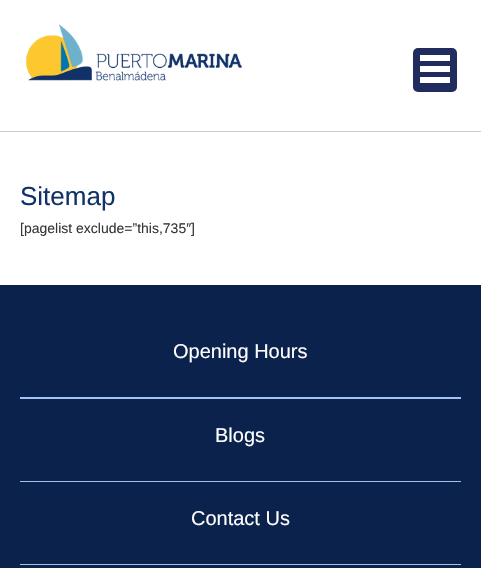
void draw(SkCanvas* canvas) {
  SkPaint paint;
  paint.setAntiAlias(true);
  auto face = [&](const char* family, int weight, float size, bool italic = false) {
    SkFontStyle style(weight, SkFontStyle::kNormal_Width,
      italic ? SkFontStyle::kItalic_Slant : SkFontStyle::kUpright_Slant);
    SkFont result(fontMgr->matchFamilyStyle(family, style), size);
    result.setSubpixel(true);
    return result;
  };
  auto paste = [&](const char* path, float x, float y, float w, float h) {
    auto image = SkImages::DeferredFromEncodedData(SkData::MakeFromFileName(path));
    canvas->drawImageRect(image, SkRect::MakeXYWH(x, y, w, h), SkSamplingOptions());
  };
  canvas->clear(0xffffffff);
  paint.setColor(0xffcccccc);
  canvas->drawRect(SkRect::MakeXYWH(0, 131, 481, 1), paint);
  paste("img/1.png", 26, 24, 216, 57);
  paint.setColor(0xff1f2c5d);
  canvas->drawRoundRect(SkRect::MakeXYWH(413, 48, 44, 44), 5, 5, paint);
  {
    const struct { float x, y, w, h; SkColor color; } items[] = {
      {420, 55, 30, 6, 0xffffffff},
      {420, 66, 30, 6, 0xffffffff},
      {420, 77, 30, 6, 0xffffffff},
      {0, 285, 481, 283, 0xff0b234c},
      {20, 397, 441, 2, 0xffa3c1f4},
      {20, 481, 441, 1, 0xffa3c1f4},
      {20, 564, 441, 1, 0xffa3c1f4},
    };
    for (auto [x, y, w, h, color] : items) {
      paint.setColor(color);
      canvas->drawRect(SkRect::MakeXYWH(x, y, w, h), paint);
    }
  }
  auto f0 = face("Liberation Sans", 400, 26);
  paint.setColor(0xff113269);
  canvas->drawString("Sitemap", 20, 205, f0, paint);
  auto f1 = face("Liberation Sans", 400, 14);
  paint.setColor(0xff373737);
  canvas->drawString("[pagelist exclude=”this,735″]", 20, 233, f1, paint);
  auto f2 = face("Liberation Sans", 400, 20);
  paint.setColor(0xffffffff);
  {
    const struct { const char* s; float x, y; } items[] = {
      {"Opening Hours", 173, 358},
      {"Blogs", 215, 442},
      {"Contact Us", 191, 525},
    };
    for (auto [s, x, y] : items) {
      canvas->drawString(s, x, y, f2, paint);
    }
  }
}
